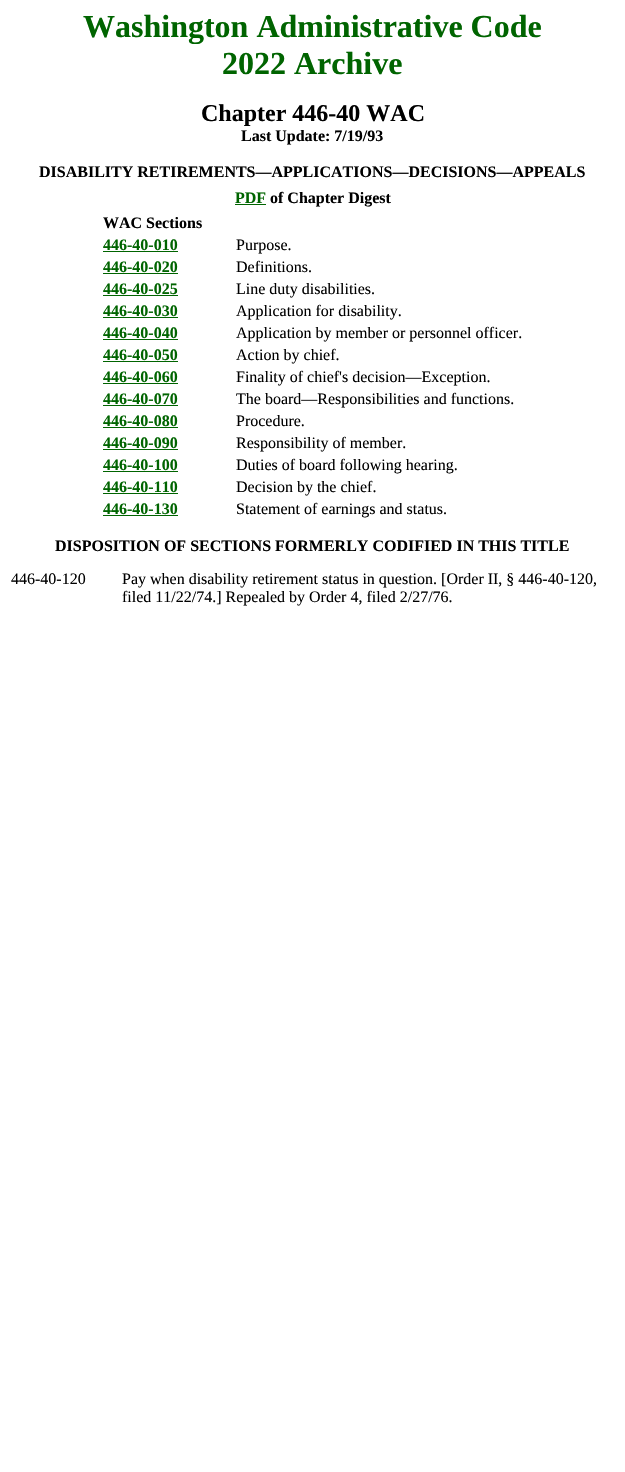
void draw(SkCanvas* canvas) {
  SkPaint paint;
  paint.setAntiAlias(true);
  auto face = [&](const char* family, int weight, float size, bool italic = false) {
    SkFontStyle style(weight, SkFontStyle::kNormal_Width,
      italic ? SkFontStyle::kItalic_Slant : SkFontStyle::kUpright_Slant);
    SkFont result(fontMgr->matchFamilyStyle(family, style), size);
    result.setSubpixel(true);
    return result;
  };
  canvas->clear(0xffffffff);
  {
    const struct { float x, y, w, h; SkColor color; } items[] = {
      {235, 204, 31, 1, 0xff006400},
      {103, 251, 75, 1, 0xff006400},
      {103, 273, 75, 1, 0xff006400},
      {103, 295, 75, 1, 0xff006400},
      {103, 317, 75, 1, 0xff006400},
      {103, 339, 75, 1, 0xff006400},
      {103, 361, 75, 1, 0xff006400},
      {103, 383, 75, 1, 0xff006400},
      {103, 405, 75, 1, 0xff006400},
      {103, 427, 75, 1, 0xff006400},
      {103, 449, 75, 1, 0xff006400},
      {103, 471, 75, 1, 0xff006400},
      {103, 493, 75, 1, 0xff006400},
      {103, 515, 75, 1, 0xff006400},
    };
    for (auto [x, y, w, h, color] : items) {
      paint.setColor(color);
      canvas->drawRect(SkRect::MakeXYWH(x, y, w, h), paint);
    }
  }
  auto f0 = face("Liberation Serif", 700, 32);
  canvas->drawString("Washington Administrative Code", 83, 37, f0, paint);
  canvas->drawString("2022 Archive", 222, 74, f0, paint);
  auto f1 = face("Liberation Serif", 700, 24);
  paint.setColor(0xff000000);
  canvas->drawString("Chapter 446-40 WAC", 201, 121, f1, paint);
  auto f2 = face("Liberation Serif", 700, 16);
  canvas->drawString("Last Update: 7/19/93", 241, 141, f2, paint);
  canvas->drawString("DISABILITY RETIREMENTS—APPLICATIONS—DECISIONS—APPEALS", 39, 177, f2, paint);
  paint.setColor(0xff006400);
  canvas->drawString("PDF", 235, 203, f2, paint);
  paint.setColor(0xff000000);
  canvas->drawString("of Chapter Digest", 270, 203, f2, paint);
  canvas->drawString("WAC Sections", 103, 228, f2, paint);
  paint.setColor(0xff006400);
  canvas->drawString("446-40-010", 103, 250, f2, paint);
  auto f3 = face("Liberation Serif", 400, 16);
  paint.setColor(0xff000000);
  canvas->drawString("Purpose.", 236, 250, f3, paint);
  paint.setColor(0xff006400);
  canvas->drawString("446-40-020", 103, 272, f2, paint);
  paint.setColor(0xff000000);
  canvas->drawString("Definitions.", 236, 272, f3, paint);
  paint.setColor(0xff006400);
  canvas->drawString("446-40-025", 103, 294, f2, paint);
  paint.setColor(0xff000000);
  canvas->drawString("Line duty disabilities.", 236, 294, f3, paint);
  paint.setColor(0xff006400);
  canvas->drawString("446-40-030", 103, 316, f2, paint);
  paint.setColor(0xff000000);
  canvas->drawString("Application for disability.", 236, 316, f3, paint);
  paint.setColor(0xff006400);
  canvas->drawString("446-40-040", 103, 338, f2, paint);
  paint.setColor(0xff000000);
  canvas->drawString("Application by member or personnel officer.", 236, 338, f3, paint);
  paint.setColor(0xff006400);
  canvas->drawString("446-40-050", 103, 360, f2, paint);
  paint.setColor(0xff000000);
  canvas->drawString("Action by chief.", 236, 360, f3, paint);
  paint.setColor(0xff006400);
  canvas->drawString("446-40-060", 103, 382, f2, paint);
  paint.setColor(0xff000000);
  canvas->drawString("Finality of chief's decision—Exception.", 236, 382, f3, paint);
  paint.setColor(0xff006400);
  canvas->drawString("446-40-070", 103, 404, f2, paint);
  paint.setColor(0xff000000);
  canvas->drawString("The board—Responsibilities and functions.", 236, 404, f3, paint);
  paint.setColor(0xff006400);
  canvas->drawString("446-40-080", 103, 426, f2, paint);
  paint.setColor(0xff000000);
  canvas->drawString("Procedure.", 236, 426, f3, paint);
  paint.setColor(0xff006400);
  canvas->drawString("446-40-090", 103, 448, f2, paint);
  paint.setColor(0xff000000);
  canvas->drawString("Responsibility of member.", 236, 448, f3, paint);
  paint.setColor(0xff006400);
  canvas->drawString("446-40-100", 103, 470, f2, paint);
  paint.setColor(0xff000000);
  canvas->drawString("Duties of board following hearing.", 236, 470, f3, paint);
  paint.setColor(0xff006400);
  canvas->drawString("446-40-110", 103, 492, f2, paint);
  paint.setColor(0xff000000);
  canvas->drawString("Decision by the chief.", 236, 492, f3, paint);
  paint.setColor(0xff006400);
  canvas->drawString("446-40-130", 103, 514, f2, paint);
  paint.setColor(0xff000000);
  canvas->drawString("Statement of earnings and status.", 236, 514, f3, paint);
  canvas->drawString("DISPOSITION OF SECTIONS FORMERLY CODIFIED IN THIS TITLE", 55, 551, f2, paint);
  {
    const struct { const char* s; float x, y; } items[] = {
      {"446-40-120", 11, 584},
      {"Pay when disability retirement status in question. [Order II, § 446-40-120,", 122, 584},
      {"filed 11/22/74.] Repealed by Order 4, filed 2/27/76.", 122, 602},
    };
    for (auto [s, x, y] : items) {
      canvas->drawString(s, x, y, f3, paint);
    }
  }
}
